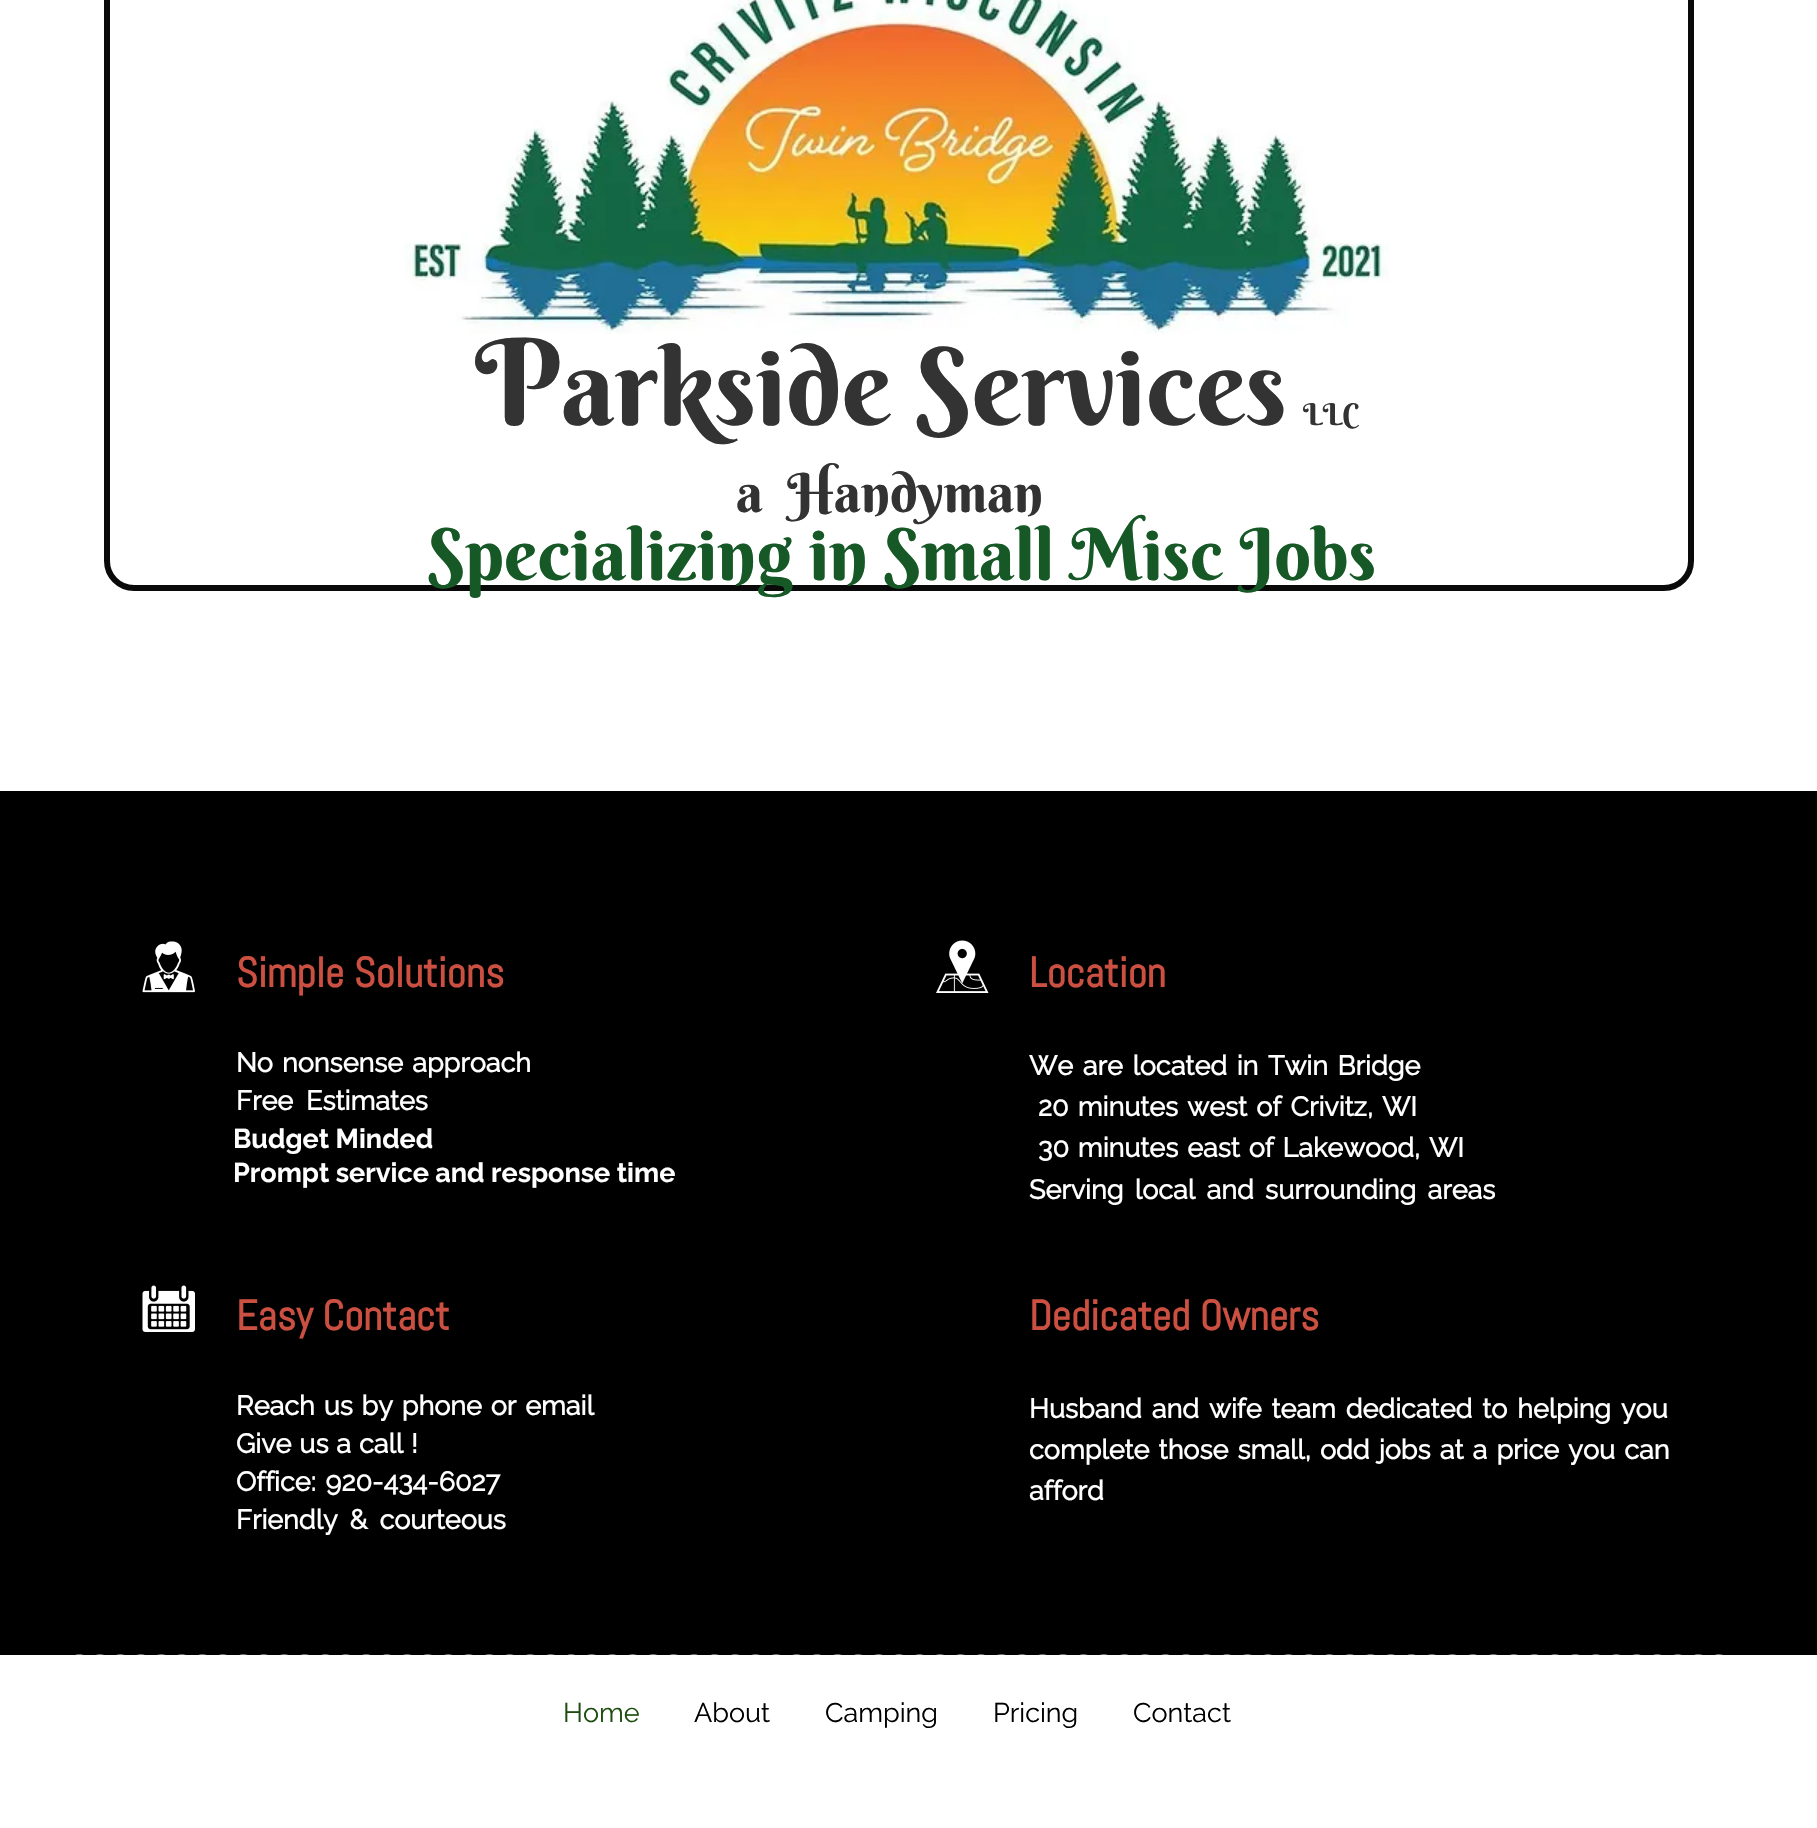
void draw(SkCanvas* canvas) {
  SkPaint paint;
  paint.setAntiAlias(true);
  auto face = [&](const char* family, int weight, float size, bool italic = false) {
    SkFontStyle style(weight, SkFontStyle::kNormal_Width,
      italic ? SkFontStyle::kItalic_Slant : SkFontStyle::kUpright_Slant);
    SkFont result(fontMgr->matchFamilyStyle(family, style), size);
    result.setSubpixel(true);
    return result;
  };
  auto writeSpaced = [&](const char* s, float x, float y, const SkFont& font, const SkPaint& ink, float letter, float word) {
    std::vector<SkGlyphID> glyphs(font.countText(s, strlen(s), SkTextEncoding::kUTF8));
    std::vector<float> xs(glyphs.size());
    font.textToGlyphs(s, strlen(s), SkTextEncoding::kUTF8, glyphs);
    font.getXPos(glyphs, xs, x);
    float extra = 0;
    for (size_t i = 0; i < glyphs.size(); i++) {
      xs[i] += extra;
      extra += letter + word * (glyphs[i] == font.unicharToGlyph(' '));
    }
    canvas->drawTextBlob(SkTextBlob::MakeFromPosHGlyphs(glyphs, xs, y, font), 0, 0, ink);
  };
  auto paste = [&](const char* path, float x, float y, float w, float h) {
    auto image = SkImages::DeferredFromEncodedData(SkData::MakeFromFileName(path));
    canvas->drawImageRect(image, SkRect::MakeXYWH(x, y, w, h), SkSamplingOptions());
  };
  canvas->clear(0xffffffff);
  paint.setStroke(true);
  paint.setStrokeWidth(6);
  paint.setColor(0xff0a0a0a);
  canvas->drawRoundRect(SkRect::MakeXYWH(107, -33, 1584, 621), 27, 27, paint);
  paste("img/1.png", 404, 0, 986, 334);
  paint.setStroke(false);
  paint.setColor(0xff000000);
  canvas->drawRect(SkRect::MakeXYWH(0, 791, 1817, 864), paint);
  paste("img/2.png", 142, 941, 53, 52);
  paste("img/3.png", 936, 940, 53, 53);
  paste("img/4.png", 142, 1285, 53, 47);
  paste("img/5.png", 75, 1654, 1648, 1);
  paste("img/6.png", 75, 1654, 1648, 1);
  auto f0 = face("Berkshire Swash", 400, 120);
  paint.setColor(0xff333333);
  canvas->drawString("P", 475, 425, f0, paint);
  auto f1 = face("Berkshire Swash", 400, 108);
  canvas->drawString("arkside Services", 561, 425, f1, paint);
  auto f2 = face("Berkshire Swash", 400, 30);
  canvas->drawString("LLC", 1303, 425, f2, paint);
  auto f3 = face("Berkshire Swash", 400, 54);
  canvas->drawString("a  Handyman", 736, 512, f3, paint);
  auto f4 = face("Berkshire Swash", 400, 72);
  paint.setColor(0xff175926);
  canvas->drawString("Specializing in Small Misc Jobs", 428, 580, f4, paint);
  auto f5 = face("Abel", 700, 42);
  paint.setColor(0xffcb5041);
  canvas->drawString("Simple Solutions", 236, 987, f5, paint);
  auto f6 = face("Raleway", 700, 27);
  paint.setColor(0xffffffff);
  writeSpaced("No nonsense approach", 236, 1072, f6, paint, 0, 2.25f);
  writeSpaced("Free Estimates", 236, 1110, f6, paint, 0, 6);
  auto f7 = face("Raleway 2", 700, 27);
  canvas->drawString("Budget Minded", 233, 1148, f7, paint);
  canvas->drawString("Prompt service and response time", 233, 1182, f7, paint);
  paint.setColor(0xffcb5041);
  canvas->drawString("Location", 1029, 987, f5, paint);
  paint.setColor(0xffffffff);
  writeSpaced("We are located in Twin Bridge", 1029, 1075, f6, paint, 0, 2.75f);
  writeSpaced("20 minutes west of Crivitz, WI", 1038, 1116, f6, paint, 0, 2.25f);
  writeSpaced("30 minutes east of Lakewood, WI", 1038, 1157, f6, paint, 0, 2);
  writeSpaced("Serving local and surrounding areas", 1029, 1199, f6, paint, 0, 4.5f);
  paint.setColor(0xffcb5041);
  canvas->drawString("Easy Contact", 236, 1330, f5, paint);
  paint.setColor(0xffffffff);
  writeSpaced("Reach us by phone or email", 236, 1415, f6, paint, 0, 2);
  writeSpaced("Give us a call !", 236, 1453, f6, paint, 0, 1);
  writeSpaced("Office: 920-434-6027", 236, 1491, f6, paint, 0, 3);
  writeSpaced("Friendly & courteous", 236, 1529, f6, paint, 0, 5);
  paint.setColor(0xffcb5041);
  canvas->drawString("Dedicated Owners", 1029, 1330, f5, paint);
  paint.setColor(0xffffffff);
  writeSpaced("Husband and wife team dedicated to helping you", 1029, 1418, f6, paint, 0, 3);
  writeSpaced("complete those small, odd jobs at a price you can", 1029, 1459, f6, paint, 0, 2.25f);
  canvas->drawString("afford", 1029, 1500, f6, paint);
  auto f8 = face("Raleway", 400, 27);
  paint.setColor(0xff1d4e10);
  canvas->drawString("Home", 563, 1722, f8, paint);
  paint.setColor(0xff000000);
  {
    const struct { const char* s; float x, y; } items[] = {
      {"About", 694, 1722},
      {"Camping", 825, 1722},
      {"Pricing", 993, 1722},
      {"Contact", 1133, 1722},
    };
    for (auto [s, x, y] : items) {
      canvas->drawString(s, x, y, f8, paint);
    }
  }
}
